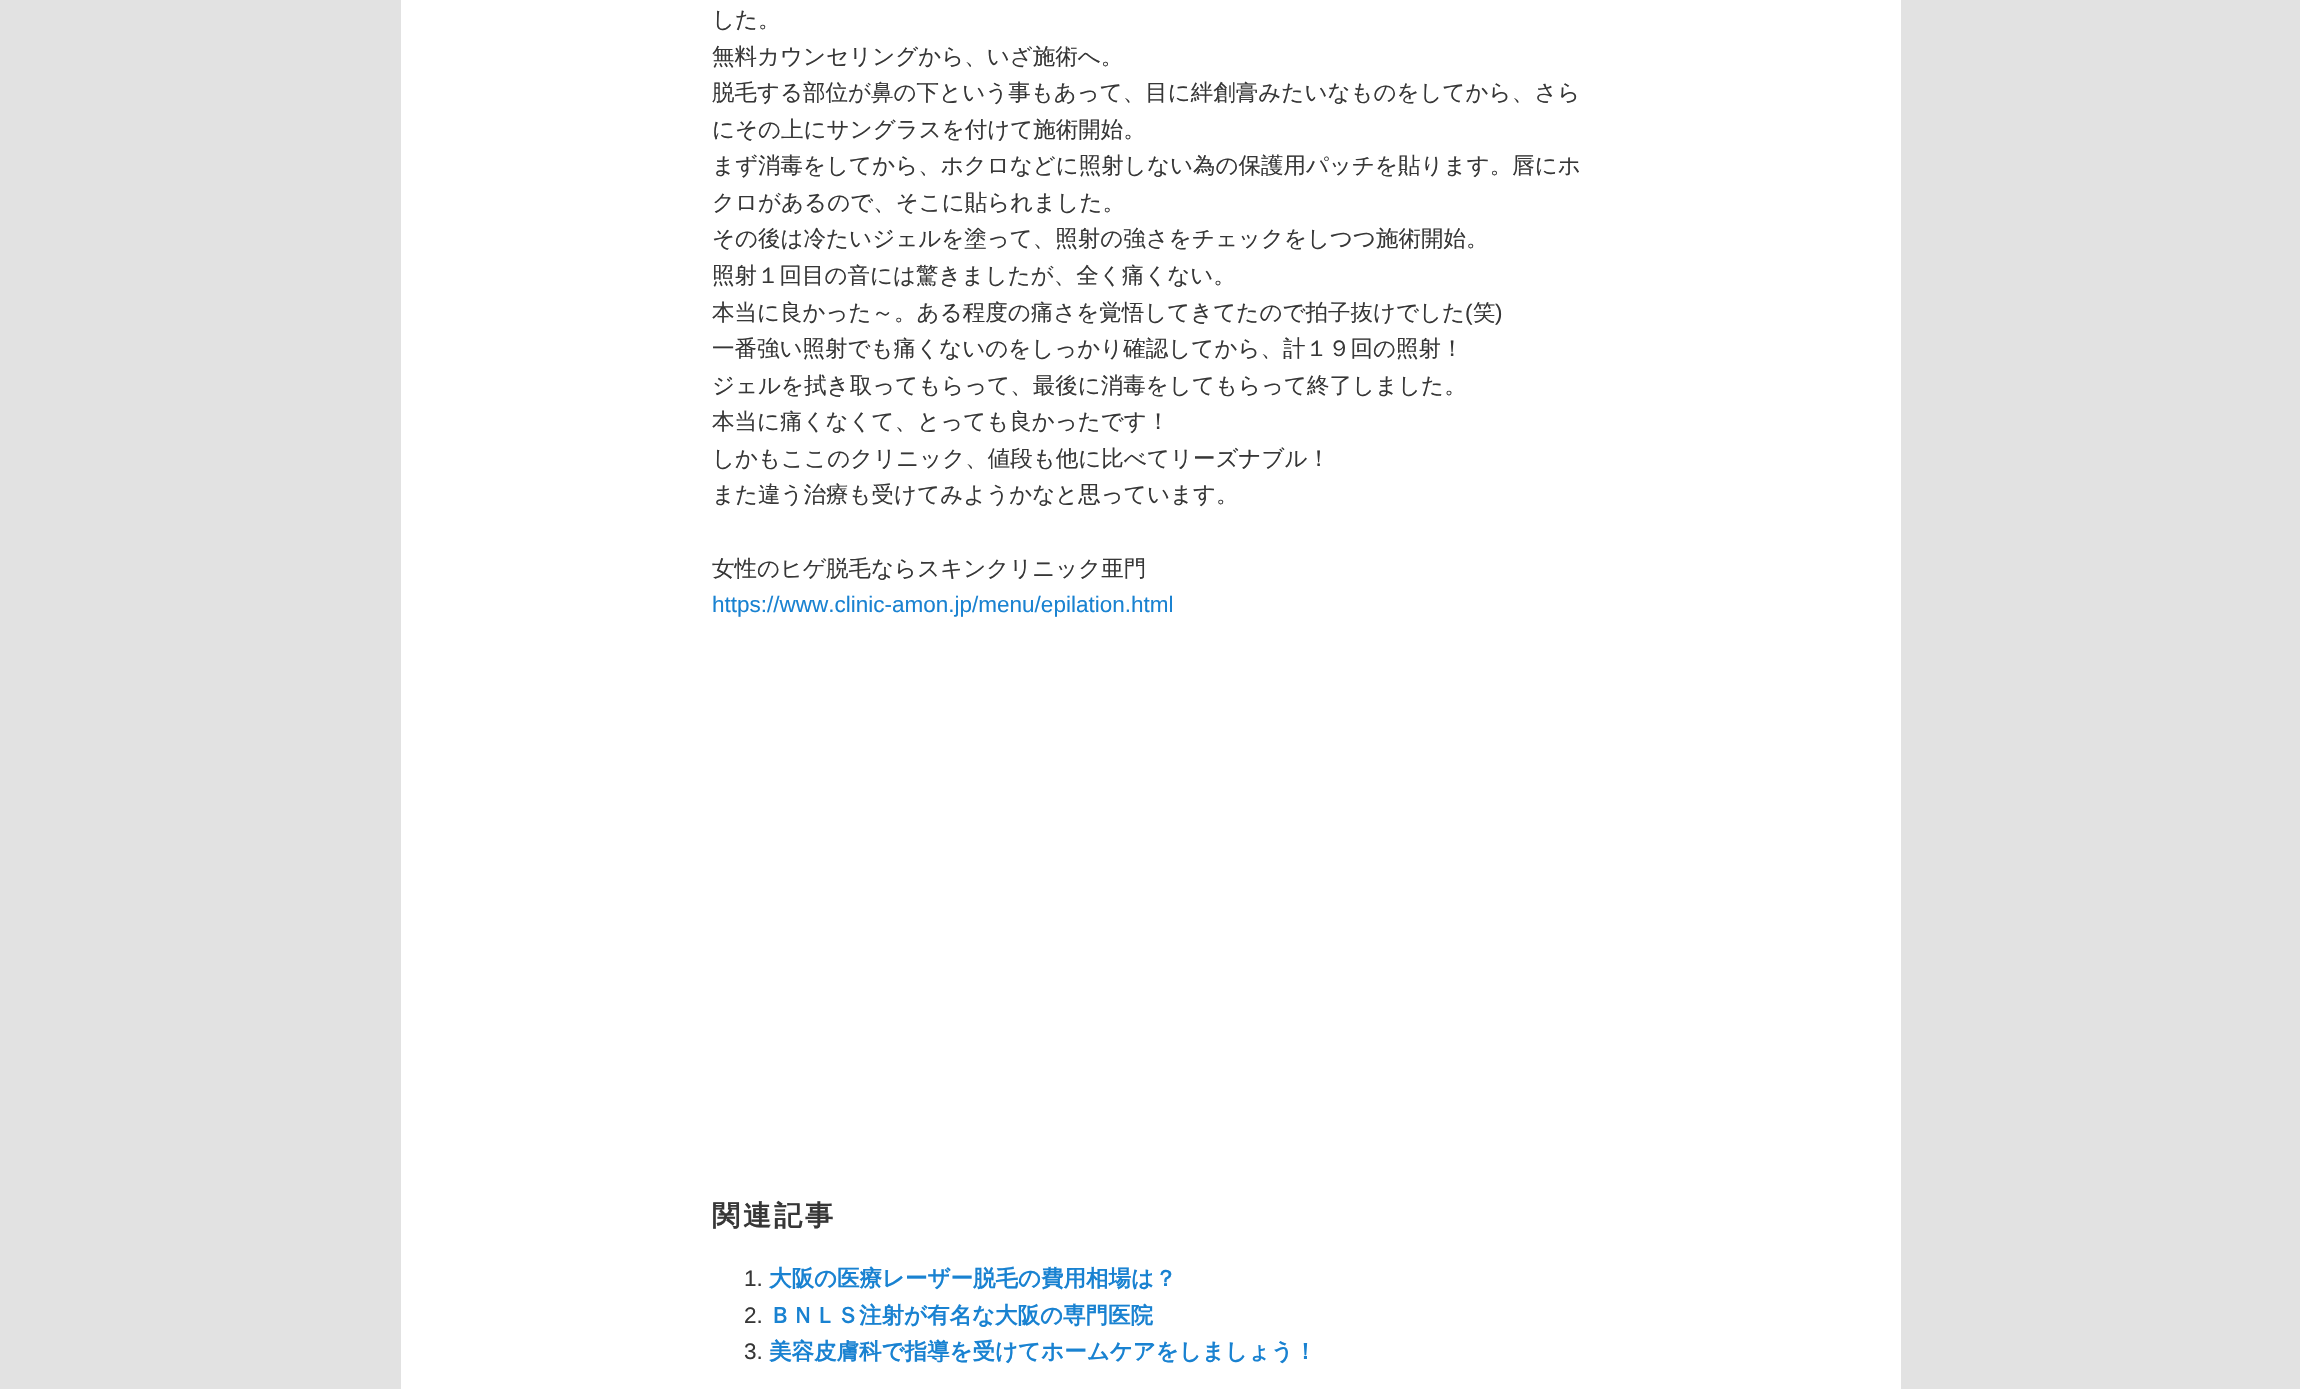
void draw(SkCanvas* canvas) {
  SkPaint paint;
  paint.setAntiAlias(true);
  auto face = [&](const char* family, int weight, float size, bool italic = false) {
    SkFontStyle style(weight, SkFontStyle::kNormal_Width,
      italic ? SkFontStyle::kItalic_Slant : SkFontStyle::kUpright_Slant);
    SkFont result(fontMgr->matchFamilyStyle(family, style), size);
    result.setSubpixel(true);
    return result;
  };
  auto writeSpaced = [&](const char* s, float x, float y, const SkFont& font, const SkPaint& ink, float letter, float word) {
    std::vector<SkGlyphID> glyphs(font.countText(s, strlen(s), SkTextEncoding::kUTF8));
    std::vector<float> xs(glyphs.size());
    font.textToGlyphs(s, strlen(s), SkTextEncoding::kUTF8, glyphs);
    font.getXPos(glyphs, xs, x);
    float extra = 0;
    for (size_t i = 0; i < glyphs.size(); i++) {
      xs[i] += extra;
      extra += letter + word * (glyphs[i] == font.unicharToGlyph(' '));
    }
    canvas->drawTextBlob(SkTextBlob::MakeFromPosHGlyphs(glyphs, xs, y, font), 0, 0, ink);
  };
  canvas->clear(0xffe2e2e2);
  paint.setColor(0xffffffff);
  canvas->drawRect(SkRect::MakeXYWH(401, 0, 1500, 1389), paint);
  auto f0 = face("WenQuanYi Zen Hei", 500, 22.5f);
  paint.setColor(0xff373737);
  {
    const struct { const char* s; float x, y; } items[] = {
      {"した。", 712, 27},
      {"無料カウンセリングから、いざ施術へ。", 712, 64},
      {"脱毛する部位が鼻の下という事もあって、目に絆創膏みたいなものをしてから、さら", 712, 100},
      {"にその上にサングラスを付けて施術開始。", 712, 137},
      {"まず消毒をしてから、ホクロなどに照射しない為の保護用パッチを貼ります。唇にホ", 712, 173},
      {"クロがあるので、そこに貼られました。", 712, 210},
      {"その後は冷たいジェルを塗って、照射の強さをチェックをしつつ施術開始。", 712, 246},
      {"照射１回目の音には驚きましたが、全く痛くない。", 712, 283},
      {"本当に良かった～。ある程度の痛さを覚悟してきてたので拍子抜けでした", 712, 320},
    };
    for (auto [s, x, y] : items) {
      canvas->drawString(s, x, y, f0, paint);
    }
  }
  auto f1 = face("Liberation Sans", 400, 22.5f);
  canvas->drawString("(", 1465, 320, f1, paint);
  canvas->drawString("笑", 1473, 320, f0, paint);
  canvas->drawString(")", 1495, 320, f1, paint);
  {
    const struct { const char* s; float x, y; } items[] = {
      {"一番強い照射でも痛くないのをしっかり確認してから、計１９回の照射！", 712, 356},
      {"ジェルを拭き取ってもらって、最後に消毒をしてもらって終了しました。", 712, 393},
      {"本当に痛くなくて、とっても良かったです！", 712, 429},
      {"しかもここのクリニック、値段も他に比べてリーズナブル！", 712, 466},
      {"また違う治療も受けてみようかなと思っています。", 712, 502},
      {"女性のヒゲ脱毛ならスキンクリニック亜門", 712, 576},
    };
    for (auto [s, x, y] : items) {
      canvas->drawString(s, x, y, f0, paint);
    }
  }
  paint.setColor(0xff1982d1);
  canvas->drawString("https://www.clinic-amon.jp/menu/epilation.html", 712, 612, f1, paint);
  auto f2 = face("WenQuanYi Zen Hei", 700, 28);
  paint.setColor(0xff373737);
  writeSpaced("関連記事", 712, 1225, f2, paint, 3, 0);
  canvas->drawString("1.", 744, 1286, f1, paint);
  auto f3 = face("WenQuanYi Zen Hei", 700, 22.5f);
  paint.setColor(0xff1982d1);
  canvas->drawString("大阪の医療レーザー脱毛の費用相場は？", 769, 1286, f3, paint);
  paint.setColor(0xff373737);
  canvas->drawString("2.", 744, 1323, f1, paint);
  paint.setColor(0xff1982d1);
  canvas->drawString("ＢＮＬＳ注射が有名な大阪の専門医院", 769, 1323, f3, paint);
  paint.setColor(0xff373737);
  canvas->drawString("3.", 744, 1359, f1, paint);
  paint.setColor(0xff1982d1);
  canvas->drawString("美容皮膚科で指導を受けてホームケアをしましょう！", 769, 1359, f3, paint);
}
